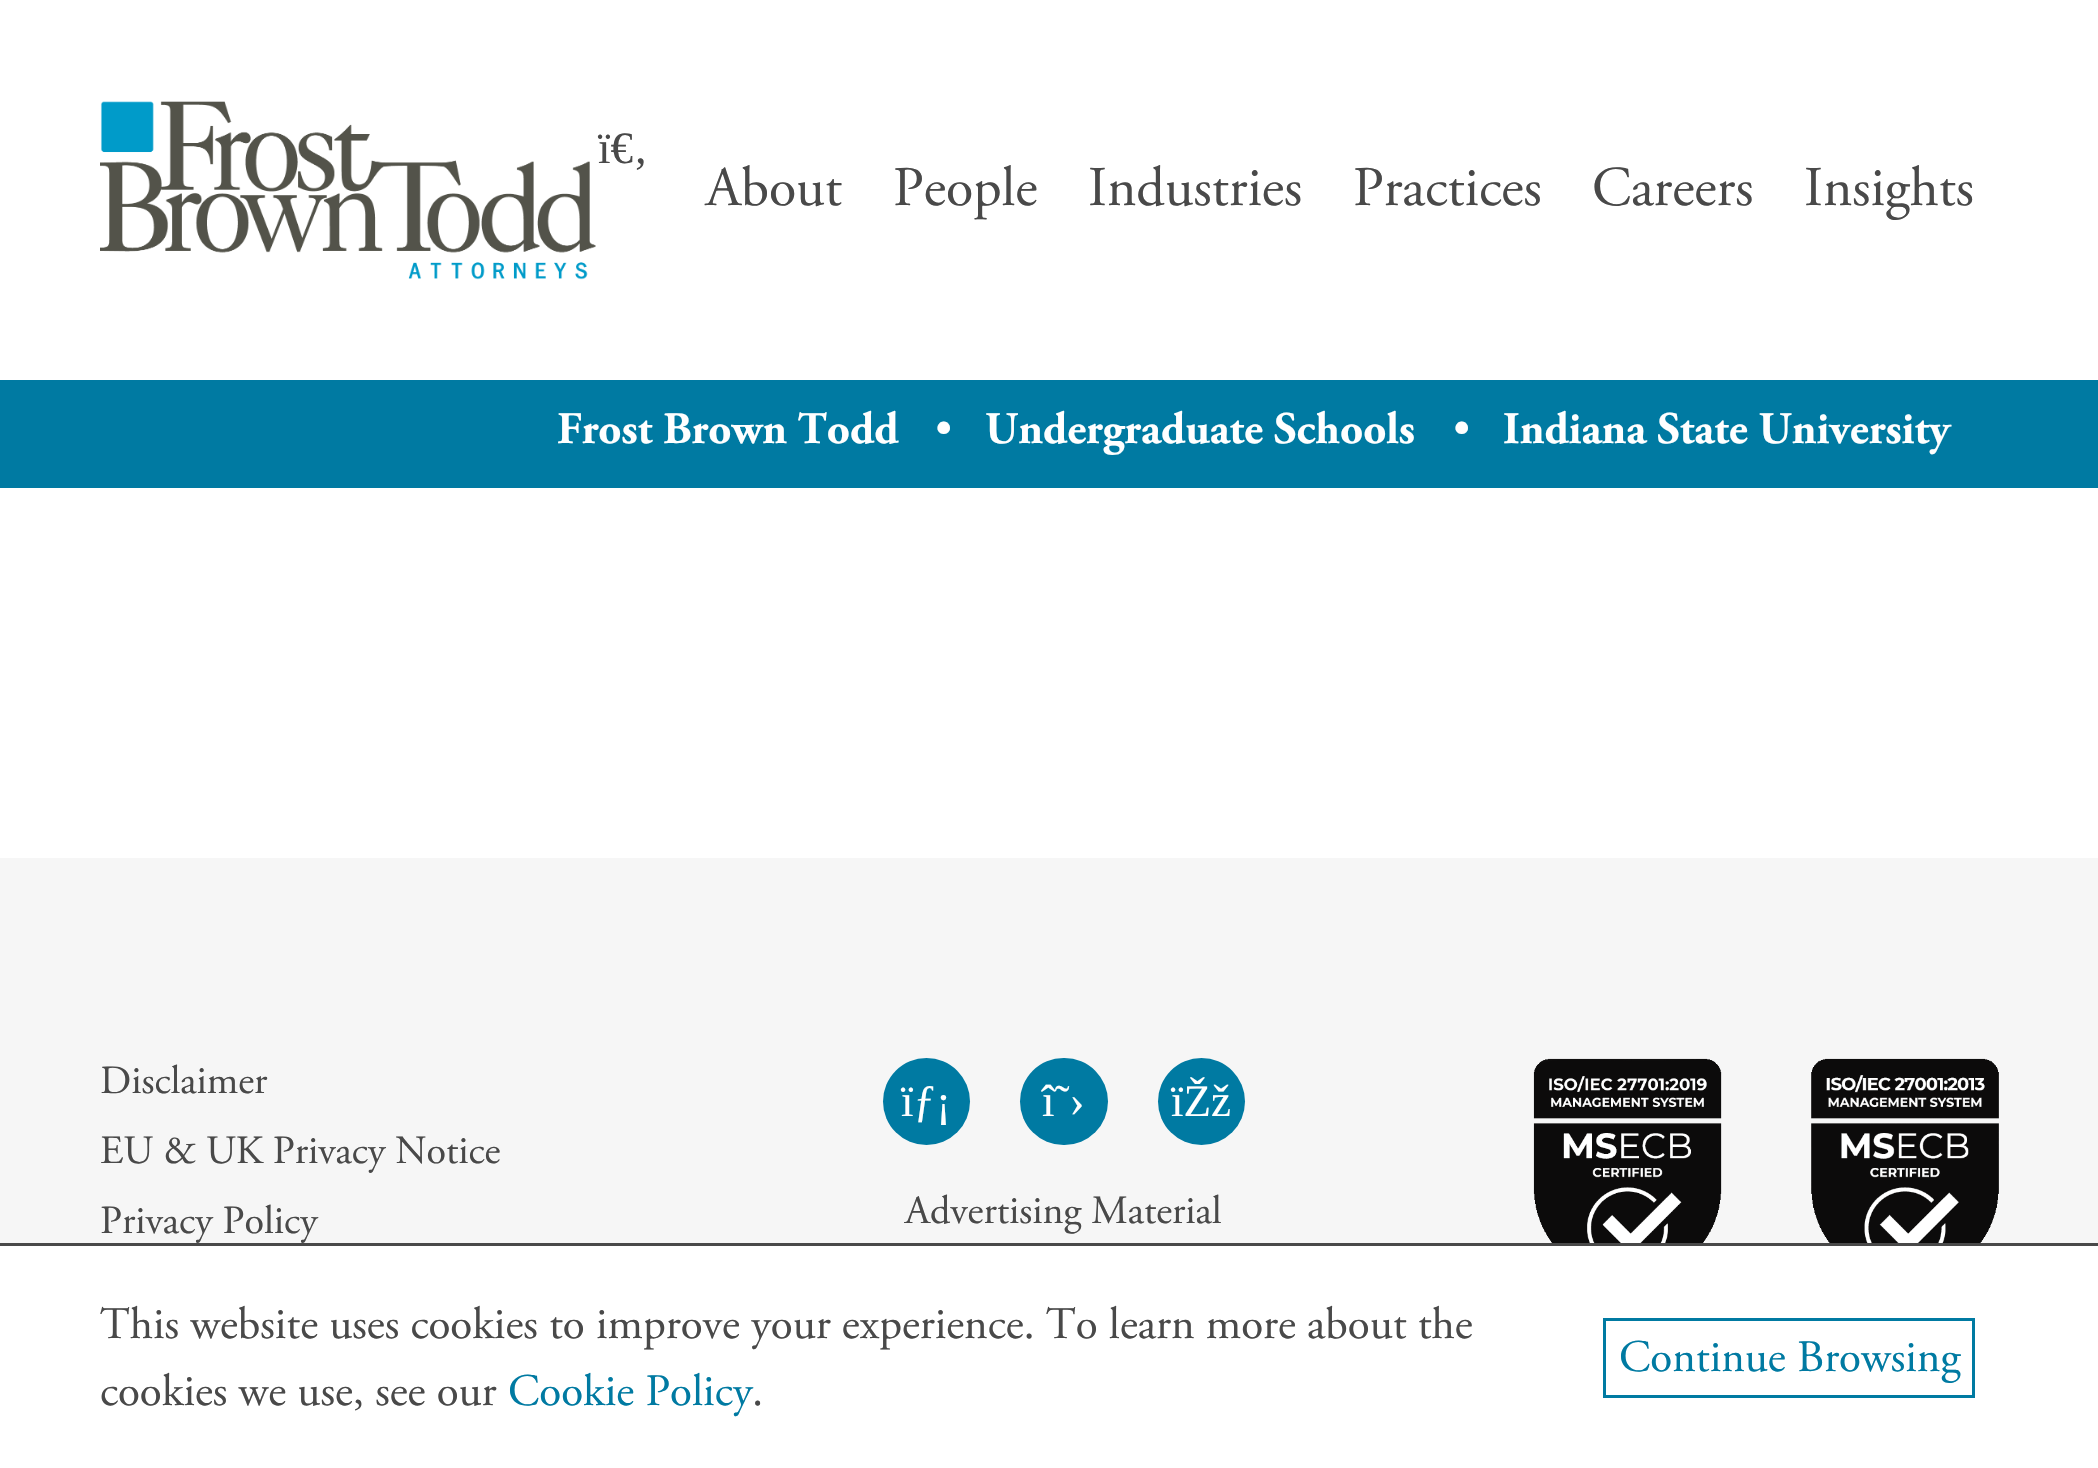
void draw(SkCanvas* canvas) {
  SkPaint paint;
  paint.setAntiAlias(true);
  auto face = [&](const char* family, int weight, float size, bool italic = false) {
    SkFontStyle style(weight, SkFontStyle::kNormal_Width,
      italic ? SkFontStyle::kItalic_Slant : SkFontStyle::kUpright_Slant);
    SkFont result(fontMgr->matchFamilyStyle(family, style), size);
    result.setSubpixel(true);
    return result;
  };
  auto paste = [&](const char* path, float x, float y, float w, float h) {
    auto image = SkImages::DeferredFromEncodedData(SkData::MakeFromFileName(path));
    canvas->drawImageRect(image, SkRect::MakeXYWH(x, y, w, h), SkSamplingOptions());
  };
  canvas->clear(0xffffffff);
  paste("img/1.png", 100, 101, 496, 179);
  paint.setColor(0xff007aa2);
  canvas->drawRect(SkRect::MakeXYWH(0, 380, 2098, 108), paint);
  paint.setColor(0xfff6f6f6);
  canvas->drawRect(SkRect::MakeXYWH(0, 858, 2098, 385), paint);
  paint.setColor(0xff007aa2);
  canvas->drawCircle(926.5f, 1101.5f, 43.5f, paint);
  canvas->drawRoundRect(SkRect::MakeXYWH(1020, 1058, 88, 87), 43.5f, 43.5f, paint);
  canvas->drawCircle(1201.5f, 1101.5f, 43.5f, paint);
  paste("img/2.png", 1533, 1058, 189, 185);
  paste("img/3.png", 1811, 1058, 188, 185);
  paint.setColor(0xff494949);
  canvas->drawRect(SkRect::MakeXYWH(0, 1243, 2098, 3), paint);
  paint.setStroke(true);
  paint.setStrokeWidth(3);
  paint.setColor(0xff007aa2);
  canvas->drawRect(SkRect::MakeXYWH(1604.5f, 1319.5f, 369, 77), paint);
  auto f0 = face("Liberation Serif", 400, 45);
  paint.setStroke(false);
  paint.setColor(0xff494949);
  canvas->drawString("ï€‚", 598, 163, f0, paint);
  auto f1 = face("Adobe Garamond", 400, 56);
  {
    const struct { const char* s; float x, y; } items[] = {
      {"About", 706, 205},
      {"People", 893, 205},
      {"Industries", 1088, 205},
      {"Practices", 1353, 205},
      {"Careers", 1592, 205},
      {"Insights", 1804, 205},
    };
    for (auto [s, x, y] : items) {
      canvas->drawString(s, x, y, f1, paint);
    }
  }
  auto f2 = face("Adobe Garamond", 700, 45);
  paint.setColor(0xffffffff);
  canvas->drawString("Frost Brown Todd", 557, 443, f2, paint);
  auto f3 = face("Adobe Garamond", 400, 45);
  canvas->drawString("•", 935, 443, f3, paint);
  canvas->drawString("Undergraduate Schools", 985, 443, f2, paint);
  canvas->drawString("•", 1453, 443, f3, paint);
  canvas->drawString("Indiana State University", 1503, 443, f2, paint);
  auto f4 = face("Adobe Garamond", 400, 40);
  paint.setColor(0xff494949);
  {
    const struct { const char* s; float x, y; } items[] = {
      {"Disclaimer", 100, 1093},
      {"EU & UK Privacy Notice", 100, 1163},
      {"Privacy Policy", 100, 1233},
    };
    for (auto [s, x, y] : items) {
      canvas->drawString(s, x, y, f4, paint);
    }
  }
  paint.setColor(0xffffffff);
  {
    const struct { const char* s; float x, y; } items[] = {
      {"ïƒ¡", 901, 1116},
      {"î˜›", 1042, 1116},
      {"ïŽž", 1171, 1116},
    };
    for (auto [s, x, y] : items) {
      canvas->drawString(s, x, y, f0, paint);
    }
  }
  paint.setColor(0xff494949);
  canvas->drawString("Advertising Material", 905, 1223, f4, paint);
  canvas->drawString("This website uses cookies to improve your experience. To learn more about the", 100, 1338, f3, paint);
  canvas->drawString("cookies we use, see our", 100, 1405, f3, paint);
  paint.setColor(0xff007aa2);
  canvas->drawString("Cookie Policy", 508, 1405, f3, paint);
  paint.setColor(0xff494949);
  canvas->drawString(".", 752, 1405, f3, paint);
  paint.setColor(0xff007aa2);
  canvas->drawString("Continue Browsing", 1619, 1371, f3, paint);
}
